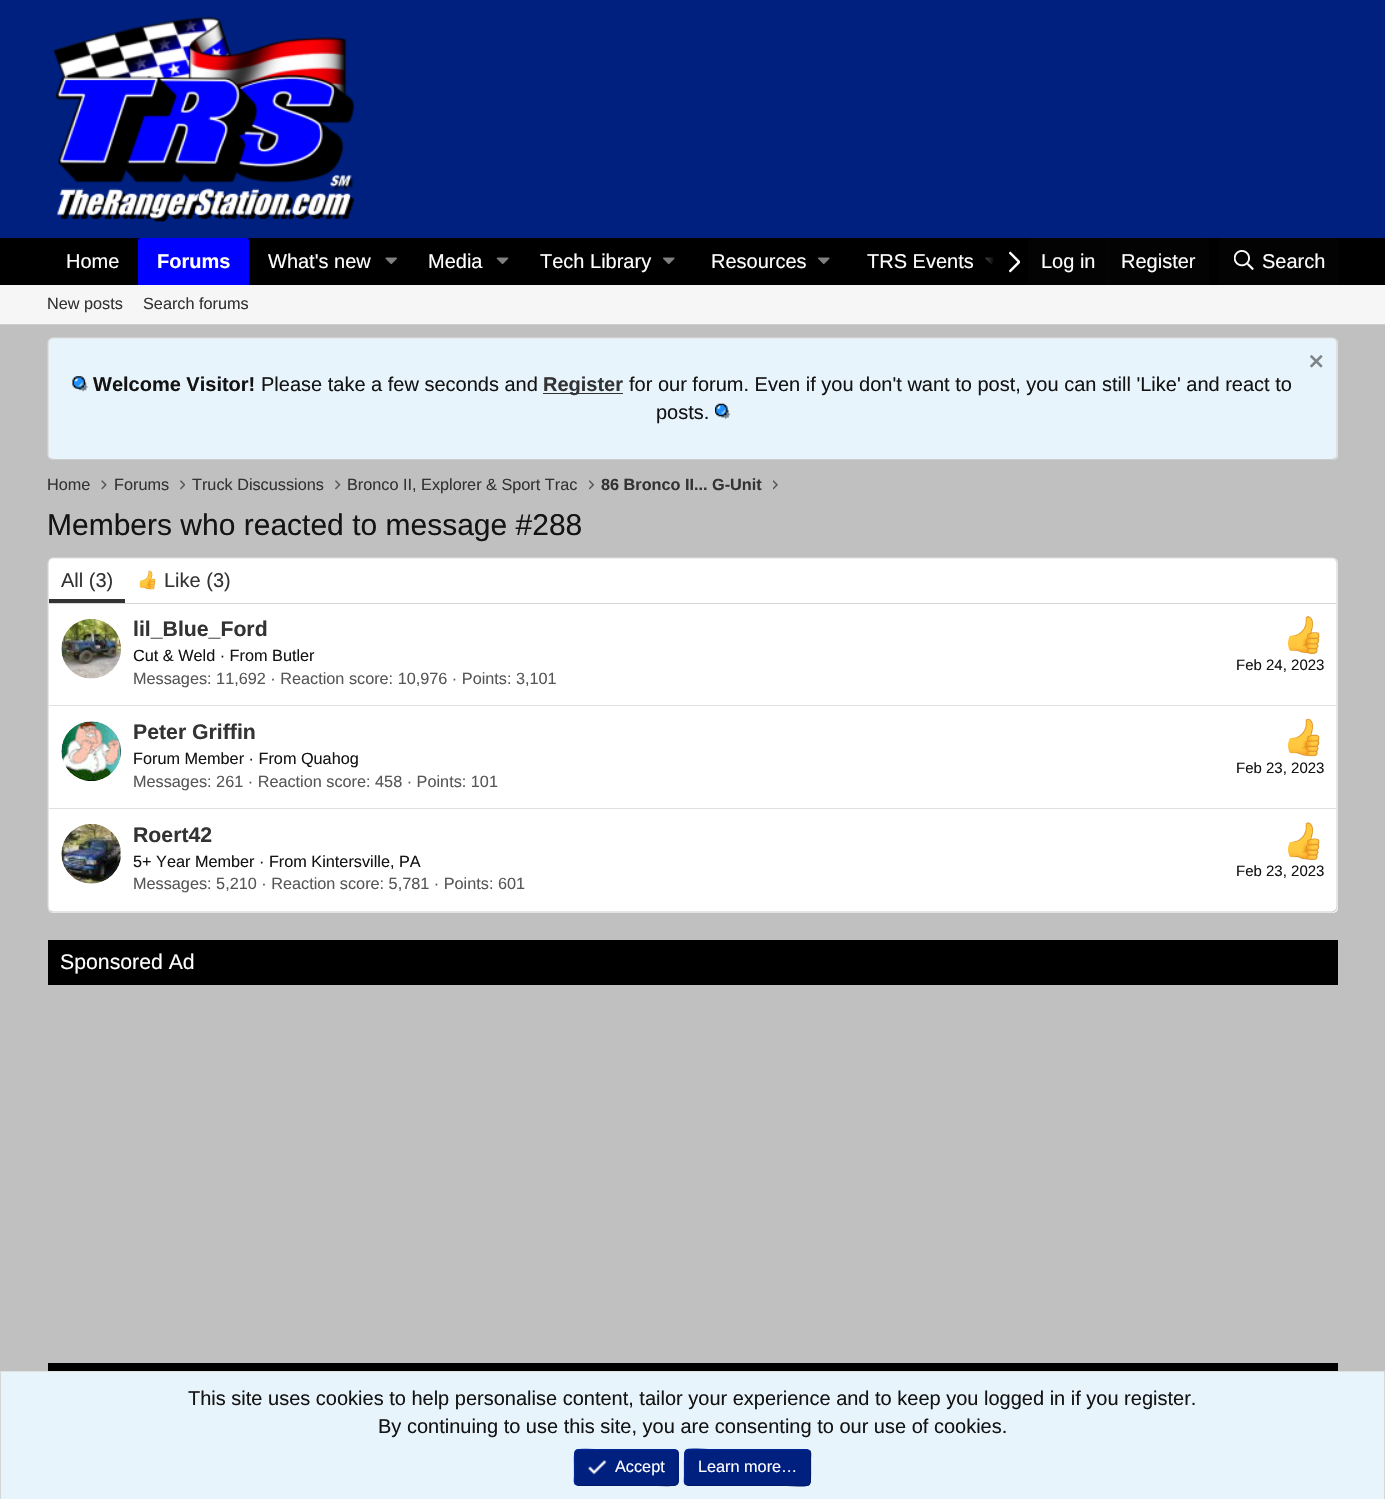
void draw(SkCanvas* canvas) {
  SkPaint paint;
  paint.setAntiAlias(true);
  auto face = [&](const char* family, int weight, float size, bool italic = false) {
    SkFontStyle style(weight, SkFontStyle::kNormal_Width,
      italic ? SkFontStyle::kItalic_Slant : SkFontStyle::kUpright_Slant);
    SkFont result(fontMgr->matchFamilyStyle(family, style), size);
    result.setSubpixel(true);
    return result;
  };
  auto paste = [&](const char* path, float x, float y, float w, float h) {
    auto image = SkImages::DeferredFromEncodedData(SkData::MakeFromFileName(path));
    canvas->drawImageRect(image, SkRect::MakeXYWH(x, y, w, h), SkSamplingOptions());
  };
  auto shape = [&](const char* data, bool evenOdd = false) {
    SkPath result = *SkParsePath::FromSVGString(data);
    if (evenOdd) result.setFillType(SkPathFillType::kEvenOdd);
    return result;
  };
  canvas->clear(0xffc0c0c0);
  paint.setColor(0xff002080);
  canvas->drawRect(SkRect::MakeXYWH(0, 0, 1385, 238), paint);
  paste("img/1.png", 53, 16, 302, 206);
  paint.setColor(0xff000000);
  canvas->drawRect(SkRect::MakeXYWH(0, 238, 1385, 47), paint);
  paint.setColor(0xff0000ff);
  canvas->drawPath(shape("M140.5 238H246.5C248 238 249 239 249 240.5V285H138V240.5C138 239 139 238 140.5 238Z"), paint);
  paste("img/2.png", 385, 257, 12, 7);
  paste("img/3.png", 496, 257, 13, 7);
  paste("img/4.png", 663, 257, 12, 7);
  paste("img/4.png", 818, 257, 12, 7);
  paste("img/5.png", 985, 257, 9, 7);
  {
    const SkColor colors[] = {0x00000000, 0xff000000};
    const float stops[] = {0, 0.33f};
    const SkPoint ends[] = {{978, 261}, {1028, 261}};
    paint.setShader(SkGradientShader::MakeLinear(ends, colors, stops, 2, SkTileMode::kClamp));
    paint.setAlpha(255);
  }
  canvas->drawRect(SkRect::MakeXYWH(985, 257, 9, 7), paint);
  paste("img/6.png", 1009, 251, 11, 22);
  paint.setShader(nullptr);
  paint.setColor(0xff030303);
  canvas->drawPath(shape("M1033 238H1204C1207 238 1209 240 1209 243V285H1028V243C1028 240 1030 238 1033 238Z"), paint);
  paint.setColor(0xff060606);
  canvas->drawRect(SkRect::MakeXYWH(1108, 238, 1, 47), paint);
  paint.setColor(0xff030303);
  canvas->drawPath(shape("M1224 238H1333C1336 238 1338 240 1338 243V285H1219V243C1219 240 1221 238 1224 238Z"), paint);
  paste("img/7.png", 1234, 250, 20, 20);
  paint.setColor(0xfff6f6f6);
  canvas->drawRect(SkRect::MakeXYWH(0, 285, 1385, 39), paint);
  paint.setColor(0xffcccccc);
  canvas->drawRect(SkRect::MakeXYWH(0, 324, 1385, 1), paint);
  paint.setColor(0xffe8f4fc);
  canvas->drawRoundRect(SkRect::MakeXYWH(48, 338, 1290, 122), 5, 5, paint);
  paint.setStroke(true);
  paint.setStrokeWidth(1.2f);
  paint.setColor(0xffe0e0e0);
  canvas->drawPath(shape("M49.5 339.5L52.5 338H1332.5L1335.5 339.5"), paint);
  paint.setColor(0xffd6d6d6);
  canvas->drawPath(shape("M1335.5 339.5C1336.5 340 1337 341.5 1337 342.5V455C1337 456 1336.5 457.5 1335.5 458"), paint);
  paint.setColor(0xffcccccc);
  canvas->drawPath(shape("M1335.5 458L1332.5 459.5H52.5L49.5 458"), paint);
  paint.setColor(0xffd6d6d6);
  canvas->drawPath(shape("M49.5 458C48.5 457.5 48 456 48 455V342.5C48 341.5 48.5 340 49.5 339.5"), paint);
  paste("img/8.png", 1310, 355, 13, 13);
  paste("img/9.png", 72, 376, 16, 16);
  paint.setStroke(false);
  paint.setColor(0xff333333);
  canvas->drawRect(SkRect::MakeXYWH(543, 393, 80, 1), paint);
  paste("img/10.png", 715, 403, 15, 16);
  paste("img/11.png", 101, 480, 6, 10);
  paste("img/12.png", 180, 480, 5, 10);
  paste("img/13.png", 335, 480, 6, 10);
  paste("img/14.png", 589, 480, 5, 10);
  paste("img/15.png", 773, 480, 5, 10);
  paint.setColor(0xffffffff);
  canvas->drawRoundRect(SkRect::MakeXYWH(48, 558, 1290, 355), 5, 5, paint);
  paint.setStroke(true);
  paint.setColor(0xffe0e0e0);
  canvas->drawPath(shape("M49.5 559.5L52.5 558H1332.5L1335.5 559.5"), paint);
  paint.setColor(0xffd6d6d6);
  canvas->drawPath(shape("M1335.5 559.5L1337 562.5V907.5L1335.5 910.5"), paint);
  paint.setColor(0xffcccccc);
  canvas->drawPath(shape("M1335.5 910.5L1332.5 912H52.5L49.5 910.5"), paint);
  paint.setColor(0xffd6d6d6);
  canvas->drawPath(shape("M49.5 910.5L48 907.5V562.5L49.5 559.5"), paint);
  paint.setStroke(false);
  paint.setColor(0xffffffff);
  canvas->drawPath(shape("M53 559H1332C1334 559 1336 561 1336 563V604H49V563C49 561 51 559 53 559Z"), paint);
  paint.setColor(0xffd6d6d6);
  canvas->drawRect(SkRect::MakeXYWH(49, 603, 1287, 1), paint);
  paint.setColor(0xff333333);
  canvas->drawRect(SkRect::MakeXYWH(49, 599, 76, 4), paint);
  paste("img/16.png", 139, 570, 17, 20);
  paste("img/17.png", 61, 619, 60, 60);
  paste("img/18.png", 1288, 616, 32, 38);
  paint.setColor(0xffe0e0e0);
  canvas->drawRect(SkRect::MakeXYWH(49, 705, 1287, 1), paint);
  paste("img/19.png", 61, 721, 60, 60);
  paste("img/20.png", 1288, 718, 32, 39);
  canvas->drawRect(SkRect::MakeXYWH(49, 808, 1287, 1), paint);
  paste("img/21.png", 61, 824, 60, 60);
  paste("img/22.png", 1288, 822, 32, 38);
  {
    const struct { float x, y, w, h; SkColor color; } items[] = {
      {48, 940, 1290, 45, 0xff000000},
      {48, 1363, 1290, 8, 0xff000000},
      {1, 1372, 1383, 127, 0xffe8f4fc},
      {0, 1371, 1385, 1, 0xffe0e0e0},
      {1384, 1371, 1, 128, 0xffd6d6d6},
      {0, 1371, 1, 128, 0xffd6d6d6},
    };
    for (auto [x, y, w, h, color] : items) {
      paint.setColor(color);
      canvas->drawRect(SkRect::MakeXYWH(x, y, w, h), paint);
    }
  }
  paint.setColor(0xff002080);
  canvas->drawRoundRect(SkRect::MakeXYWH(574, 1449, 105, 37), 5, 5, paint);
  paint.setStroke(true);
  paint.setColor(0xff001a67);
  canvas->drawPath(shape("M677 1450.5C679 1452.5 678 1456 678 1458.5V1467.5C678 1489 681 1485.5 658 1485.5H579L575.5 1484.5"), paint);
  paint.setColor(0xff00269a);
  canvas->drawPath(shape("M575.5 1484.5C573.5 1482.5 574.5 1479 574.5 1476.5V1467.5C574.5 1446 571.5 1449.5 594.5 1449.5H674L677 1450.5"), paint);
  paste("img/23.png", 588, 1460, 19, 15);
  paint.setStroke(false);
  paint.setColor(0xff002080);
  canvas->drawRoundRect(SkRect::MakeXYWH(684, 1449, 127, 37), 5, 5, paint);
  paint.setStroke(true);
  paint.setColor(0xff001a67);
  canvas->drawPath(shape("M809.5 1450.5C811.5 1452.5 810.5 1456 810.5 1458.5V1467.5C810.5 1490.5 813 1485.5 786.5 1485.5H689L685.5 1484.5"), paint);
  paint.setColor(0xff00269a);
  canvas->drawPath(shape("M685.5 1484.5C683.5 1482.5 684.5 1479 684.5 1476.5V1467.5C684.5 1444.5 682 1449.5 708.5 1449.5H806L809.5 1450.5"), paint);
  auto f0 = face("Liberation Sans", 400, 20);
  paint.setStroke(false);
  paint.setColor(0xffffffff);
  canvas->drawString("Home", 66, 268, f0, paint);
  auto f1 = face("Liberation Sans", 700, 20);
  canvas->drawString("Forums", 157, 268, f1, paint);
  {
    const struct { const char* s; float x, y; } items[] = {
      {"What's new", 268, 268},
      {"Media", 428, 268},
      {"Tech Library", 540, 268},
      {"Resources", 711, 268},
      {"TRS Events", 867, 268},
      {"Log in", 1041, 268},
      {"Register", 1121, 268},
      {"Search", 1262, 268},
    };
    for (auto [s, x, y] : items) {
      canvas->drawString(s, x, y, f0, paint);
    }
  }
  auto f2 = face("Liberation Sans", 400, 16.25f);
  paint.setColor(0xff333333);
  canvas->drawString("New posts", 47, 309, f2, paint);
  canvas->drawString("Search forums", 143, 309, f2, paint);
  paint.setColor(0xff141414);
  canvas->drawString("Welcome Visitor!", 93, 391, f1, paint);
  canvas->drawString("Please take a few seconds and", 261, 391, f0, paint);
  paint.setColor(0xff333333);
  canvas->drawString("Register", 543, 391, f1, paint);
  paint.setColor(0xff141414);
  canvas->drawString("for our forum. Even if you don't want to post, you can still 'Like' and react to", 629, 391, f0, paint);
  canvas->drawString("posts.", 656, 419, f0, paint);
  paint.setColor(0xff333333);
  {
    const struct { const char* s; float x, y; } items[] = {
      {"Home", 47, 490},
      {"Forums", 114, 490},
      {"Truck Discussions", 192, 490},
      {"Bronco II, Explorer & Sport Trac", 347, 490},
    };
    for (auto [s, x, y] : items) {
      canvas->drawString(s, x, y, f2, paint);
    }
  }
  auto f3 = face("Liberation Sans", 700, 16.25f);
  canvas->drawString("86 Bronco II... G-Unit", 601, 490, f3, paint);
  auto f4 = face("Liberation Sans", 400, 30);
  paint.setColor(0xff141414);
  canvas->drawString("Members who reacted to message #288", 47, 535, f4, paint);
  paint.setColor(0xff333333);
  canvas->drawString("All (3)", 61, 587, f0, paint);
  canvas->drawString("Like (3)", 164, 587, f0, paint);
  auto f5 = face("Liberation Sans", 700, 21.25f);
  canvas->drawString("lil_Blue_Ford", 133, 636, f5, paint);
  paint.setColor(0xff141414);
  canvas->drawString("Cut & Weld · From Butler", 133, 661, f2, paint);
  auto f6 = face("Liberation Sans", 400, 15);
  canvas->drawString("Feb 24, 2023", 1236, 670, f6, paint);
  paint.setColor(0xff575757);
  canvas->drawString("Messages: 11,692 · Reaction score: 10,976 · Points: 3,101", 133, 684, f2, paint);
  paint.setColor(0xff333333);
  canvas->drawString("Peter Griffin", 133, 739, f5, paint);
  paint.setColor(0xff141414);
  canvas->drawString("Forum Member · From Quahog", 133, 764, f2, paint);
  canvas->drawString("Feb 23, 2023", 1236, 773, f6, paint);
  paint.setColor(0xff575757);
  canvas->drawString("Messages: 261 · Reaction score: 458 · Points: 101", 133, 787, f2, paint);
  paint.setColor(0xff333333);
  canvas->drawString("Roert42", 133, 842, f5, paint);
  paint.setColor(0xff141414);
  canvas->drawString("5+ Year Member · From Kintersville, PA", 133, 867, f2, paint);
  canvas->drawString("Feb 23, 2023", 1236, 876, f6, paint);
  paint.setColor(0xff575757);
  canvas->drawString("Messages: 5,210 · Reaction score: 5,781 · Points: 601", 133, 889, f2, paint);
  auto f7 = face("Liberation Sans", 400, 21.25f);
  paint.setColor(0xffffffff);
  canvas->drawString("Sponsored Ad", 60, 969, f7, paint);
  paint.setColor(0xff141414);
  canvas->drawString("This site uses cookies to help personalise content, tailor your experience and to keep you logged in if you register.", 188, 1405, f0, paint);
  canvas->drawString("By continuing to use this site, you are consenting to our use of cookies.", 378, 1433, f0, paint);
  paint.setColor(0xffffffff);
  canvas->drawString("Accept", 615, 1472, f2, paint);
  canvas->drawString("Learn more…", 698, 1472, f2, paint);
}
